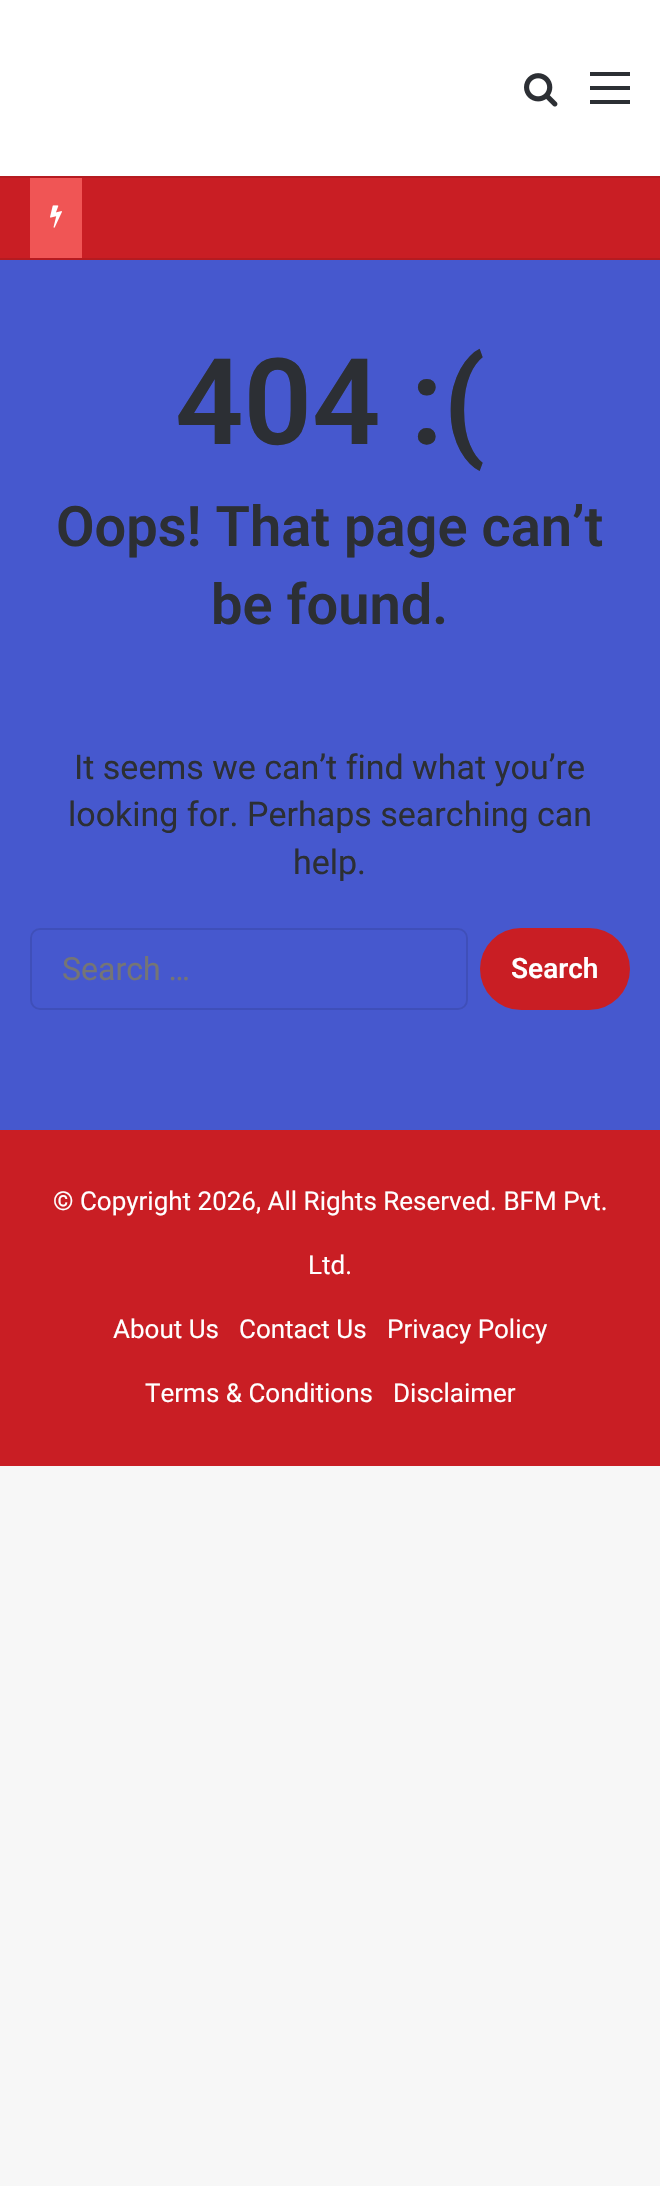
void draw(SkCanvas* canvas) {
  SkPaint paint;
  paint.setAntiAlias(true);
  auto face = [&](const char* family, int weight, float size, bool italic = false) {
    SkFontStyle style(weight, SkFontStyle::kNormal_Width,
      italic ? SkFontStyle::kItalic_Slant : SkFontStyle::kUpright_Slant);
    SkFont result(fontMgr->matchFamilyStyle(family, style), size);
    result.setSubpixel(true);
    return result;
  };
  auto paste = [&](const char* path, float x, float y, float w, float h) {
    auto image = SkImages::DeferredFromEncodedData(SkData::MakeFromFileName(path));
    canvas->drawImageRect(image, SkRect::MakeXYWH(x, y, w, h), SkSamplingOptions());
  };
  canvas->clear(0xfff7f7f7);
  paint.setColor(0xff4658ce);
  canvas->drawRect(SkRect::MakeXYWH(0, 260, 660, 870), paint);
  paint.setColor(0xffffffff);
  canvas->drawRect(SkRect::MakeXYWH(0, 0, 660, 176), paint);
  paste("img/1.png", 524, 73, 34, 34);
  {
    const struct { float x, y, w, h; SkColor color; } items[] = {
      {590, 86, 40, 4, 0xff2c2f34},
      {590, 72, 40, 4, 0xff2c2f34},
      {590, 100, 40, 4, 0xff2c2f34},
      {0, 178, 660, 80, 0xffc91e24},
      {0, 176, 660, 2, 0xffb51b20},
      {0, 258, 660, 2, 0xffb51b20},
      {30, 178, 52, 80, 0xfff05555},
    };
    for (auto [x, y, w, h, color] : items) {
      paint.setColor(color);
      canvas->drawRect(SkRect::MakeXYWH(x, y, w, h), paint);
    }
  }
  paste("img/2.png", 50, 205, 12, 23);
  paint.setStroke(true);
  paint.setStrokeWidth(2);
  paint.setColor(0xff3f4fb9);
  canvas->drawRoundRect(SkRect::MakeXYWH(31, 929, 436, 80), 9, 9, paint);
  paint.setStroke(false);
  paint.setColor(0xffc91e24);
  canvas->drawRoundRect(SkRect::MakeXYWH(480, 928, 150, 82), 41, 41, paint);
  canvas->drawRect(SkRect::MakeXYWH(0, 1130, 660, 336), paint);
  auto f0 = face("Roboto", 600, 120);
  paint.setColor(0xff2c2f34);
  canvas->drawString("404 :(", 175, 444, f0, paint);
  auto f1 = face("Roboto", 600, 56);
  canvas->drawString("Oops! That page can’t", 56, 546, f1, paint);
  canvas->drawString("be found.", 211, 624, f1, paint);
  auto f2 = face("Roboto", 400, 34);
  {
    const struct { const char* s; float x, y; } items[] = {
      {"It seems we can’t find what you’re", 74, 779},
      {"looking for. Perhaps searching can", 68, 826},
      {"help.", 293, 874},
    };
    for (auto [s, x, y] : items) {
      canvas->drawString(s, x, y, f2, paint);
    }
  }
  auto f3 = face("Roboto", 400, 32);
  paint.setColor(0xff757575);
  canvas->drawString("Search …", 62, 980, f3, paint);
  auto f4 = face("Roboto", 600, 28);
  paint.setColor(0xffffffff);
  canvas->drawString("Search", 511, 978, f4, paint);
  auto f5 = face("Roboto", 400, 26);
  {
    const struct { const char* s; float x, y; } items[] = {
      {"© Copyright 2026, All Rights Reserved. BFM Pvt.", 53, 1210},
      {"Ltd.", 308, 1274},
      {"About Us", 113, 1338},
      {"Contact Us", 239, 1338},
      {"Privacy Policy", 387, 1338},
      {"Terms & Conditions", 145, 1402},
      {"Disclaimer", 393, 1402},
    };
    for (auto [s, x, y] : items) {
      canvas->drawString(s, x, y, f5, paint);
    }
  }
}
